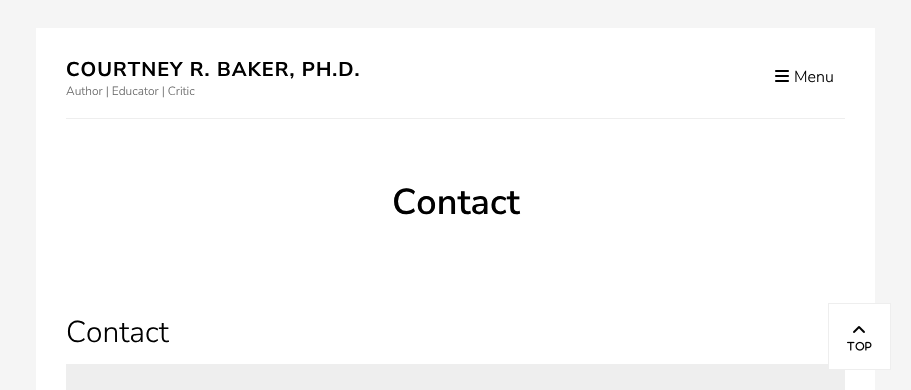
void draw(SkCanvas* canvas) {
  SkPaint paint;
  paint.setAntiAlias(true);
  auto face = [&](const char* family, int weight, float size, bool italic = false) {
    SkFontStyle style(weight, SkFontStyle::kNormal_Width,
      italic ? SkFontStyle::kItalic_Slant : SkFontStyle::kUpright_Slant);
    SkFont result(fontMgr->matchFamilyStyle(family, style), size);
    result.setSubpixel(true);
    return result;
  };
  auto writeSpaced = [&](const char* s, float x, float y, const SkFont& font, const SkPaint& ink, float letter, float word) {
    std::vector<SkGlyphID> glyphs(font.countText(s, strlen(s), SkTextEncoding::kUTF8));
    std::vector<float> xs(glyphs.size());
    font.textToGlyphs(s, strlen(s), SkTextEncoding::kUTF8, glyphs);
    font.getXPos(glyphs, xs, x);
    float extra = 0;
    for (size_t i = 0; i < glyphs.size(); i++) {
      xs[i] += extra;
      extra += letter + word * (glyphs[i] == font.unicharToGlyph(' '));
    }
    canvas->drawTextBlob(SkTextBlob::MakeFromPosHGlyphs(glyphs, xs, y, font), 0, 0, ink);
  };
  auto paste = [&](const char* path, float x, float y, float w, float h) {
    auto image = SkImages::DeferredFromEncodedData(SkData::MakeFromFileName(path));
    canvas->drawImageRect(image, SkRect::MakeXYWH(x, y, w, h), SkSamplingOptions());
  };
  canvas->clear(0xfff5f5f5);
  paint.setColor(0xffffffff);
  canvas->drawRect(SkRect::MakeXYWH(36, 28, 839, 362), paint);
  paste("img/1.png", 775, 70, 14, 12);
  paint.setColor(0xffeeeeee);
  canvas->drawRect(SkRect::MakeXYWH(66, 118, 779, 1), paint);
  canvas->drawRect(SkRect::MakeXYWH(66, 364, 779, 26), paint);
  paint.setColor(0xffffffff);
  canvas->drawRect(SkRect::MakeXYWH(828.5f, 303.5f, 62, 66), paint);
  paint.setStroke(true);
  paint.setStrokeWidth(1);
  paint.setColor(0xffeeeeee);
  canvas->drawRect(SkRect::MakeXYWH(828.5f, 303.5f, 62, 66), paint);
  paste("img/2.png", 853, 326, 12, 7);
  paste("img/3.png", 847, 341, 25, 10);
  auto f0 = face("Nunito Sans", 700, 20);
  paint.setStroke(false);
  paint.setColor(0xff000000);
  writeSpaced("COURTNEY R. BAKER, PH.D.", 66, 76, f0, paint, 1, 0);
  auto f1 = face("Nunito Sans", 300, 12);
  paint.setColor(0xff686868);
  canvas->drawString("Author | Educator | Critic", 66, 95, f1, paint);
  auto f2 = face("Nunito Sans", 300, 16);
  paint.setColor(0xff000000);
  canvas->drawString("Menu", 794, 82, f2, paint);
  auto f3 = face("Nunito Sans", 600, 36);
  canvas->drawString("Contact", 392, 214, f3, paint);
  auto f4 = face("Nunito Sans", 300, 30);
  canvas->drawString("Contact", 66, 342, f4, paint);
}
